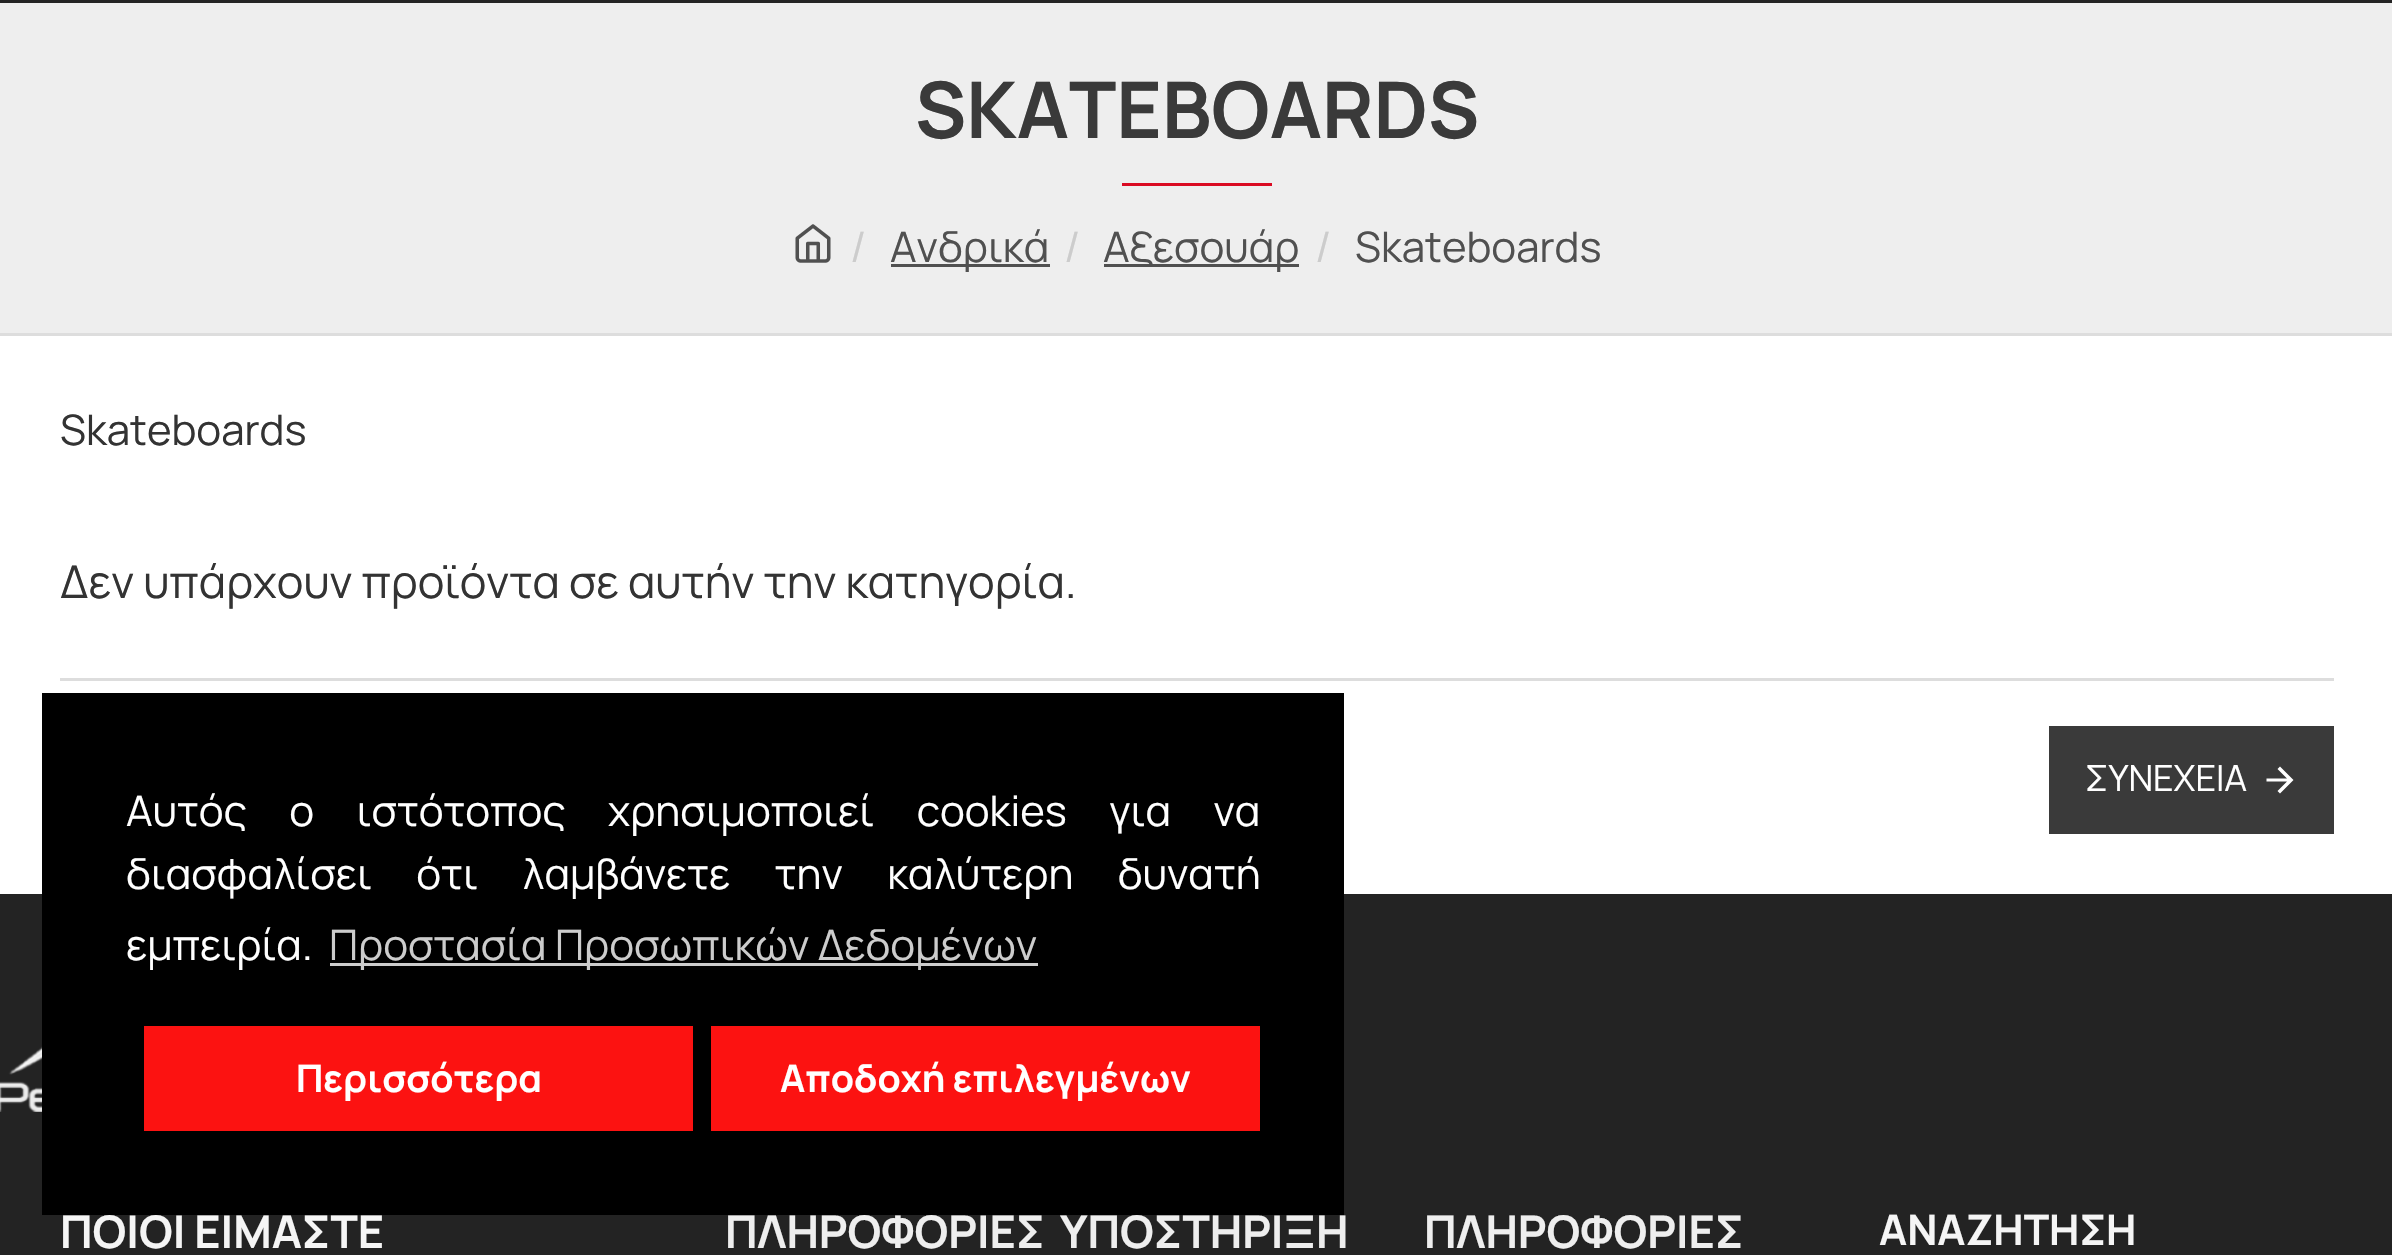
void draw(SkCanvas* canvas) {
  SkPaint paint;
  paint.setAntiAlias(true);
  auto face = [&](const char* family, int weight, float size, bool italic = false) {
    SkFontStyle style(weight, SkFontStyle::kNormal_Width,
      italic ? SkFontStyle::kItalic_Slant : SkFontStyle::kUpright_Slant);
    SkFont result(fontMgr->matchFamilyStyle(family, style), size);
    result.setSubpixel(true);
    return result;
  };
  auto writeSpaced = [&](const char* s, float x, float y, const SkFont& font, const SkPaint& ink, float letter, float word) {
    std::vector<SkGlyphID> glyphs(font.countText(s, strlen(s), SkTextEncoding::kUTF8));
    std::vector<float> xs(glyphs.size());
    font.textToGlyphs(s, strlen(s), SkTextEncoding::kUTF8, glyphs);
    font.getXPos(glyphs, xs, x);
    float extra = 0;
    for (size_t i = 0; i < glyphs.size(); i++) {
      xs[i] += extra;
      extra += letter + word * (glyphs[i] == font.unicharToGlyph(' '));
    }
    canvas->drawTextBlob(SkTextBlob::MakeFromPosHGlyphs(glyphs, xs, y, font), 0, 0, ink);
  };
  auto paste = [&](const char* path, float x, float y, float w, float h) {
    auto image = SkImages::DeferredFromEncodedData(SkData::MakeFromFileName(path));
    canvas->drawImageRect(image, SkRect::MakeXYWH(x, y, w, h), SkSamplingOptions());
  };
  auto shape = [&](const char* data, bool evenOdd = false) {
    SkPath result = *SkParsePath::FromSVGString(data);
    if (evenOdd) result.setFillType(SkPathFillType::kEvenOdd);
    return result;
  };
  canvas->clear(0xffffffff);
  {
    const struct { float x, y, w, h; SkColor color; } items[] = {
      {0, 0, 2392, 3, 0xff232323},
      {0, 3, 2392, 330, 0xffeeeeee},
      {1122, 183, 150, 3, 0xffda0a22},
      {0, 333, 2392, 3, 0xffdddddd},
    };
    for (auto [x, y, w, h, color] : items) {
      paint.setColor(color);
      canvas->drawRect(SkRect::MakeXYWH(x, y, w, h), paint);
    }
  }
  paste("img/1.png", 795, 224, 36, 39);
  {
    const struct { float x, y, w, h; SkColor color; } items[] = {
      {891, 264, 159, 3, 0xff505050},
      {1104, 264, 195, 3, 0xff505050},
      {60, 678, 2274, 3, 0xffdddddd},
      {2049, 726, 285, 108, 0xff3a3a3a},
    };
    for (auto [x, y, w, h, color] : items) {
      paint.setColor(color);
      canvas->drawRect(SkRect::MakeXYWH(x, y, w, h), paint);
    }
  }
  paint.setColor(0xffffffff);
  canvas->drawPath(shape("M2280 766.5L2293.5 780L2280 793.5L2277.5 791L2287 781.5H2266.5V778.5H2287L2277.5 769Z"), paint);
  paint.setColor(0xff232323);
  canvas->drawRect(SkRect::MakeXYWH(0, 894, 2392, 361), paint);
  paste("img/2.png", 0, 1046, 42, 66);
  auto f0 = face("Manrope", 700, 78);
  paint.setColor(0xff3a3a3a);
  canvas->drawString("SKATEBOARDS", 915, 138, f0, paint);
  auto f1 = face("Manrope", 400, 42);
  paint.setColor(0xffcccccc);
  canvas->drawString("/", 850, 262, f1, paint);
  paint.setColor(0xff505050);
  canvas->drawString("Ανδρικά", 890, 262, f1, paint);
  paint.setColor(0xffcccccc);
  canvas->drawString("/", 1064, 262, f1, paint);
  paint.setColor(0xff505050);
  canvas->drawString("Αξεσουάρ", 1103, 262, f1, paint);
  paint.setColor(0xffcccccc);
  canvas->drawString("/", 1315, 262, f1, paint);
  paint.setColor(0xff505050);
  canvas->drawString("Skateboards", 1355, 262, f1, paint);
  paint.setColor(0xff333333);
  canvas->drawString("Skateboards", 60, 445, f1, paint);
  auto f2 = face("Manrope", 400, 45);
  canvas->drawString("Δεν υπάρχουν προϊόντα σε αυτήν την κατηγορία.", 60, 598, f2, paint);
  auto f3 = face("Manrope", 400, 36);
  paint.setColor(0xffffffff);
  canvas->drawString("ΣΥΝΕΧΕΙΑ", 2085, 791, f3, paint);
  auto f4 = face("Manrope", 700, 45);
  paint.setColor(0xfff5f5f5);
  canvas->drawString("ΠΟΙΟΙ ΕΙΜΑΣΤΕ", 60, 1248, f4, paint);
  paint.setColor(0xffeeeeee);
  {
    const struct { const char* s; float x, y; } items[] = {
      {"ΠΛΗΡΟΦΟΡΙΕΣ", 725, 1248},
      {"ΥΠΟΣΤΗΡΙΞΗ", 1060, 1248},
      {"ΠΛΗΡΟΦΟΡΙΕΣ", 1424, 1248},
    };
    for (auto [s, x, y] : items) {
      canvas->drawString(s, x, y, f4, paint);
    }
  }
  auto f5 = face("Manrope", 700, 42);
  paint.setColor(0xfff5f5f5);
  canvas->drawString("ΑΝΑΖΗΤΗΣΗ", 1879, 1245, f5, paint);
  paint.setColor(0xff000000);
  canvas->drawRect(SkRect::MakeXYWH(42, 693, 1302, 522), paint);
  paint.setColor(0xffffffff);
  writeSpaced("Αυτός ο ιστότοπος χρησιμοποιεί cookies για να", 126, 826, f1, paint, 0, 34);
  writeSpaced("διασφαλίσει ότι λαμβάνετε την καλύτερη δυνατή", 126, 889, f1, paint, 0, 36);
  canvas->drawString("εμπειρία.", 126, 960, f1, paint);
  paint.setColor(0xffcccccc);
  canvas->drawRect(SkRect::MakeXYWH(330, 963, 708, 3), paint);
  canvas->drawString("Προστασία Προσωπικών Δεδομένων", 329, 960, f1, paint);
  paint.setColor(0xfffc1211);
  canvas->drawRect(SkRect::MakeXYWH(144, 1026, 549, 105), paint);
  auto f6 = face("Manrope", 700, 37.75f);
  paint.setColor(0xffffffff);
  canvas->drawString("Περισσότερα", 296, 1092, f6, paint);
  paint.setColor(0xfffc1211);
  canvas->drawRect(SkRect::MakeXYWH(711, 1026, 549, 105), paint);
  paint.setColor(0xffffffff);
  canvas->drawString("Αποδοχή επιλεγμένων", 780, 1092, f6, paint);
}
